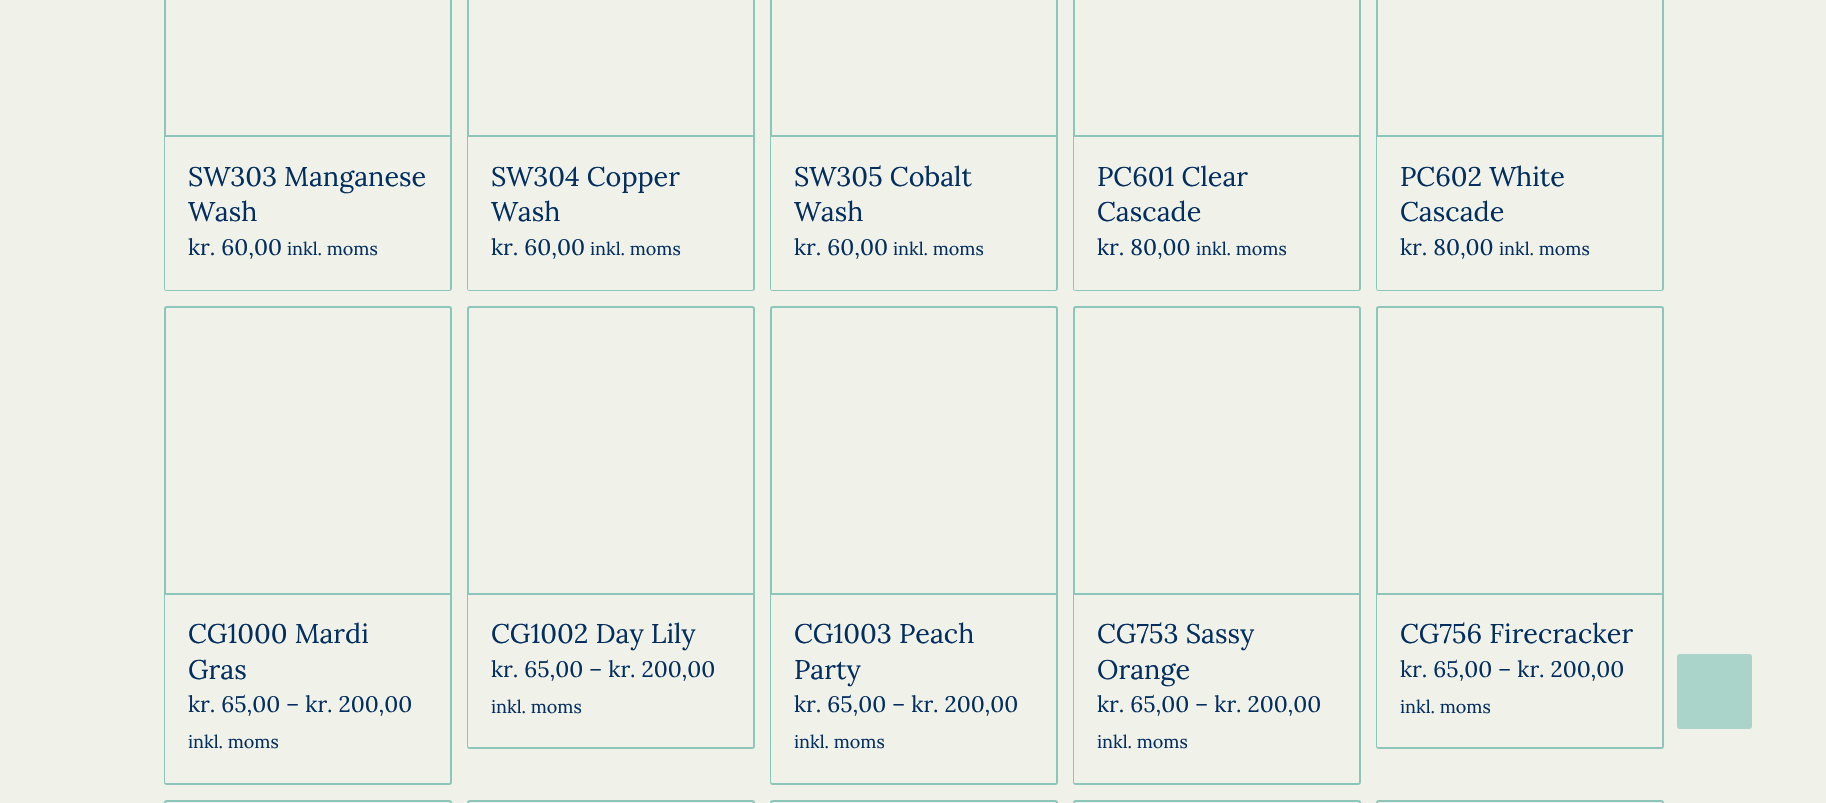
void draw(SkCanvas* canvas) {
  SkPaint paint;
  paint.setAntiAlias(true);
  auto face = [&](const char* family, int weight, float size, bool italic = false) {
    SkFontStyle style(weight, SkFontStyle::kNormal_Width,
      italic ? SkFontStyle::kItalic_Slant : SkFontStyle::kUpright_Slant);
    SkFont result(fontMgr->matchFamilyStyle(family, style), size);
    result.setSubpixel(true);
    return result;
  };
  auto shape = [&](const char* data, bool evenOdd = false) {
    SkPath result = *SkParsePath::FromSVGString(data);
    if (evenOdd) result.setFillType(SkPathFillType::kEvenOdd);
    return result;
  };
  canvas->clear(0xfff0f1e8);
  paint.setStroke(true);
  paint.setStrokeWidth(2);
  paint.setColor(0xff8cc6bb);
  canvas->drawRoundRect(SkRect::MakeXYWH(165, -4, 286, 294), 2, 2, paint);
  paint.setStroke(false);
  paint.setColor(0xfff0f1e8);
  canvas->drawPath(shape("M165 135H450V288.5C450 289.5 449.5 290 448.5 290H166.5C165.5 290 165 289.5 165 288.5Z"), paint);
  paint.setColor(0xff8cc6bb);
  canvas->drawRect(SkRect::MakeXYWH(165, 135, 285, 2), paint);
  paint.setStroke(true);
  canvas->drawRoundRect(SkRect::MakeXYWH(468, -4, 286, 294), 2, 2, paint);
  paint.setStroke(false);
  paint.setColor(0xfff0f1e8);
  canvas->drawPath(shape("M468 135H753V288.5C753 289.5 752.5 290 751.5 290H469.5C468.5 290 468 289.5 468 288.5Z"), paint);
  paint.setColor(0xff8cc6bb);
  canvas->drawRect(SkRect::MakeXYWH(468, 135, 285, 2), paint);
  paint.setStroke(true);
  canvas->drawRoundRect(SkRect::MakeXYWH(771, -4, 286, 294), 2, 2, paint);
  paint.setStroke(false);
  paint.setColor(0xfff0f1e8);
  canvas->drawPath(shape("M771 135H1056V288.5C1056 289.5 1055.5 290 1054.5 290H772.5C771.5 290 771 289.5 771 288.5Z"), paint);
  paint.setColor(0xff8cc6bb);
  canvas->drawRect(SkRect::MakeXYWH(771, 135, 285, 2), paint);
  paint.setStroke(true);
  canvas->drawRoundRect(SkRect::MakeXYWH(1074, -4, 286, 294), 2, 2, paint);
  paint.setStroke(false);
  paint.setColor(0xfff0f1e8);
  canvas->drawPath(shape("M1074 135H1359V288.5C1359 289.5 1358.5 290 1357.5 290H1075.5C1074.5 290 1074 289.5 1074 288.5Z"), paint);
  paint.setColor(0xff8cc6bb);
  canvas->drawRect(SkRect::MakeXYWH(1074, 135, 285, 2), paint);
  paint.setStroke(true);
  canvas->drawRoundRect(SkRect::MakeXYWH(1377, -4, 286, 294), 2, 2, paint);
  paint.setStroke(false);
  paint.setColor(0xfff0f1e8);
  canvas->drawPath(shape("M1377 135H1662V288.5C1662 289.5 1661.5 290 1660.5 290H1378.5C1377.5 290 1377 289.5 1377 288.5Z"), paint);
  paint.setColor(0xff8cc6bb);
  canvas->drawRect(SkRect::MakeXYWH(1377, 135, 285, 2), paint);
  paint.setStroke(true);
  canvas->drawRoundRect(SkRect::MakeXYWH(165, 307, 286, 477), 2, 2, paint);
  paint.setStroke(false);
  paint.setColor(0xfff0f1e8);
  canvas->drawPath(shape("M165 593H450V781.5C450 782.5 449.5 783 448.5 783H166.5C165.5 783 165 782.5 165 781.5Z"), paint);
  paint.setColor(0xff8cc6bb);
  canvas->drawRect(SkRect::MakeXYWH(165, 593, 285, 2), paint);
  paint.setStroke(true);
  canvas->drawRoundRect(SkRect::MakeXYWH(468, 307, 286, 441), 2, 2, paint);
  paint.setStroke(false);
  paint.setColor(0xfff0f1e8);
  canvas->drawPath(shape("M468 593H753V745.5C753 746.5 752.5 747 751.5 747H469.5C468.5 747 468 746.5 468 745.5Z"), paint);
  paint.setColor(0xff8cc6bb);
  canvas->drawRect(SkRect::MakeXYWH(468, 593, 285, 2), paint);
  paint.setStroke(true);
  canvas->drawRoundRect(SkRect::MakeXYWH(771, 307, 286, 477), 2, 2, paint);
  paint.setStroke(false);
  paint.setColor(0xfff0f1e8);
  canvas->drawPath(shape("M771 593H1056V781.5C1056 782.5 1055.5 783 1054.5 783H772.5C771.5 783 771 782.5 771 781.5Z"), paint);
  paint.setColor(0xff8cc6bb);
  canvas->drawRect(SkRect::MakeXYWH(771, 593, 285, 2), paint);
  paint.setStroke(true);
  canvas->drawRoundRect(SkRect::MakeXYWH(1074, 307, 286, 477), 2, 2, paint);
  paint.setStroke(false);
  paint.setColor(0xfff0f1e8);
  canvas->drawPath(shape("M1074 593H1359V781.5C1359 782.5 1358.5 783 1357.5 783H1075.5C1074.5 783 1074 782.5 1074 781.5Z"), paint);
  paint.setColor(0xff8cc6bb);
  canvas->drawRect(SkRect::MakeXYWH(1074, 593, 285, 2), paint);
  paint.setStroke(true);
  canvas->drawRoundRect(SkRect::MakeXYWH(1377, 307, 286, 441), 2, 2, paint);
  paint.setStroke(false);
  paint.setColor(0xfff0f1e8);
  canvas->drawPath(shape("M1377 593H1662V745.5C1662 746.5 1661.5 747 1660.5 747H1378.5C1377.5 747 1377 746.5 1377 745.5Z"), paint);
  paint.setColor(0xff8cc6bb);
  canvas->drawRect(SkRect::MakeXYWH(1377, 593, 285, 2), paint);
  paint.setStroke(true);
  canvas->drawRoundRect(SkRect::MakeXYWH(165, 801, 286, 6), 2, 2, paint);
  canvas->drawRoundRect(SkRect::MakeXYWH(468, 801, 286, 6), 2, 2, paint);
  canvas->drawRoundRect(SkRect::MakeXYWH(771, 801, 286, 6), 2, 2, paint);
  canvas->drawRoundRect(SkRect::MakeXYWH(1074, 801, 286, 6), 2, 2, paint);
  canvas->drawRoundRect(SkRect::MakeXYWH(1377, 801, 286, 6), 2, 2, paint);
  paint.setStroke(false);
  paint.setColor(0xffaad3c9);
  canvas->drawRoundRect(SkRect::MakeXYWH(1678, 655, 73, 73), 2, 2, paint);
  paint.setStroke(true);
  canvas->drawRoundRect(SkRect::MakeXYWH(1678, 655, 73, 73), 2, 2, paint);
  auto f0 = face("Lora", 400, 27);
  paint.setStroke(false);
  paint.setColor(0xff022e60);
  canvas->drawString("SW303 Manganese", 188, 186, f0, paint);
  canvas->drawString("Wash", 188, 221, f0, paint);
  auto f1 = face("Lora", 400, 22.5f);
  canvas->drawString("kr. 60,00", 188, 255, f1, paint);
  auto f2 = face("Lora", 400, 18);
  canvas->drawString("inkl. moms", 287, 255, f2, paint);
  canvas->drawString("SW304 Copper", 491, 186, f0, paint);
  canvas->drawString("Wash", 491, 221, f0, paint);
  canvas->drawString("kr. 60,00", 491, 255, f1, paint);
  canvas->drawString("inkl. moms", 590, 255, f2, paint);
  canvas->drawString("SW305 Cobalt", 794, 186, f0, paint);
  canvas->drawString("Wash", 794, 221, f0, paint);
  canvas->drawString("kr. 60,00", 794, 255, f1, paint);
  canvas->drawString("inkl. moms", 893, 255, f2, paint);
  canvas->drawString("PC601 Clear", 1097, 186, f0, paint);
  canvas->drawString("Cascade", 1097, 221, f0, paint);
  canvas->drawString("kr. 80,00", 1097, 255, f1, paint);
  canvas->drawString("inkl. moms", 1196, 255, f2, paint);
  canvas->drawString("PC602 White", 1400, 186, f0, paint);
  canvas->drawString("Cascade", 1400, 221, f0, paint);
  canvas->drawString("kr. 80,00", 1400, 255, f1, paint);
  canvas->drawString("inkl. moms", 1499, 255, f2, paint);
  canvas->drawString("CG1000 Mardi", 188, 643, f0, paint);
  canvas->drawString("Gras", 188, 679, f0, paint);
  canvas->drawString("kr. 65,00 – kr. 200,00", 188, 712, f1, paint);
  canvas->drawString("inkl. moms", 188, 748, f2, paint);
  canvas->drawString("CG1002 Day Lily", 491, 643, f0, paint);
  canvas->drawString("kr. 65,00 – kr. 200,00", 491, 677, f1, paint);
  canvas->drawString("inkl. moms", 491, 713, f2, paint);
  canvas->drawString("CG1003 Peach", 794, 643, f0, paint);
  canvas->drawString("Party", 794, 679, f0, paint);
  canvas->drawString("kr. 65,00 – kr. 200,00", 794, 712, f1, paint);
  canvas->drawString("inkl. moms", 794, 748, f2, paint);
  canvas->drawString("CG753 Sassy", 1097, 643, f0, paint);
  canvas->drawString("Orange", 1097, 679, f0, paint);
  canvas->drawString("kr. 65,00 – kr. 200,00", 1097, 712, f1, paint);
  canvas->drawString("inkl. moms", 1097, 748, f2, paint);
  canvas->drawString("CG756 Firecracker", 1400, 643, f0, paint);
  canvas->drawString("kr. 65,00 – kr. 200,00", 1400, 677, f1, paint);
  canvas->drawString("inkl. moms", 1400, 713, f2, paint);
}
